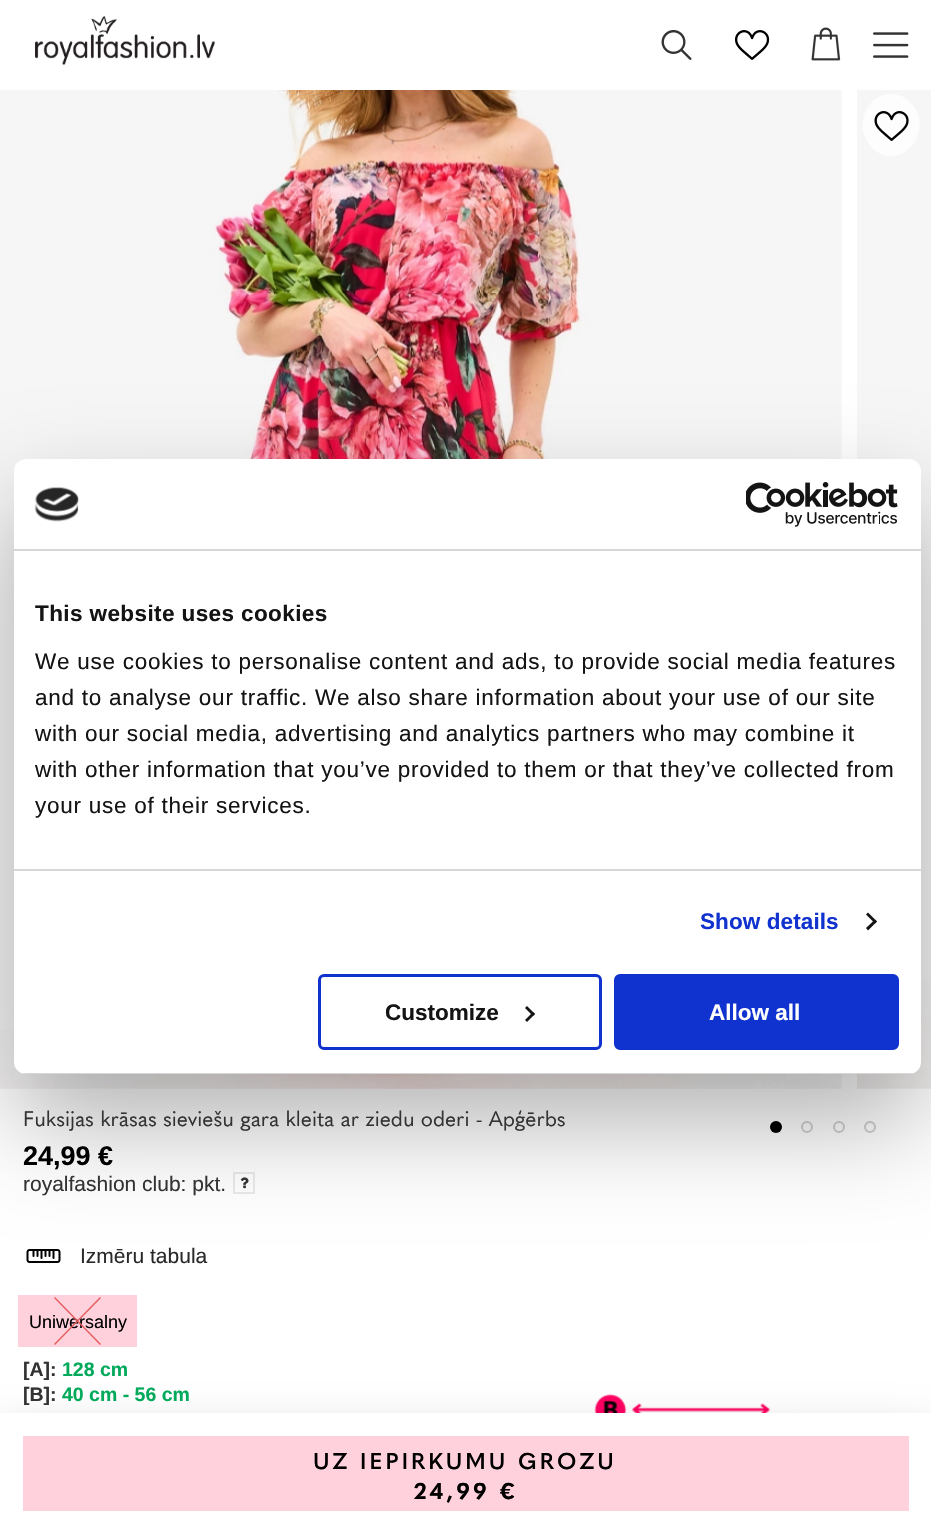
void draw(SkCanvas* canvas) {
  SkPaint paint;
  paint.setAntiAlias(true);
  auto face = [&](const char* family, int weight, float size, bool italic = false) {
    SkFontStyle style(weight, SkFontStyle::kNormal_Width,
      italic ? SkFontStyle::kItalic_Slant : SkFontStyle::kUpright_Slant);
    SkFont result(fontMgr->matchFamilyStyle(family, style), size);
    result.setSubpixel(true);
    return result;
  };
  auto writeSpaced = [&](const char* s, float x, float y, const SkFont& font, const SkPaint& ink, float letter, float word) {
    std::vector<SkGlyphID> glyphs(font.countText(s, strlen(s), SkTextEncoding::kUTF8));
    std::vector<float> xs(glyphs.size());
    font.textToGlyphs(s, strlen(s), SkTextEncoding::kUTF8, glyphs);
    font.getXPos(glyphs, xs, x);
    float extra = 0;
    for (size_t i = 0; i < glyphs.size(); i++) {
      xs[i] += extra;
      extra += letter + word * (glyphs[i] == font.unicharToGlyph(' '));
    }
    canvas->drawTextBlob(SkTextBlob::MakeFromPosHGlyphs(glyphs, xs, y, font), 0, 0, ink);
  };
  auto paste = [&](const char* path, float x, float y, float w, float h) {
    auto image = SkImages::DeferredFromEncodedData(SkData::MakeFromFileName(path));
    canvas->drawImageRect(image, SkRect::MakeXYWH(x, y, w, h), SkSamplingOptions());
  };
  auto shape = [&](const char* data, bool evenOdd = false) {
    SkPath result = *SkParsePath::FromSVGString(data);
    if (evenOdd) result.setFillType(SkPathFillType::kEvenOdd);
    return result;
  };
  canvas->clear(0xffffffff);
  paste("img/9.png", 0, 90, 842, 999);
  paste("img/10.png", 857, 90, 74, 999);
  paint.setColor(0xff000000);
  canvas->drawCircle(776, 1127, 6, paint);
  paint.setStroke(true);
  paint.setStrokeWidth(2);
  paint.setColor(0xffd0d0d0);
  canvas->drawCircle(807, 1127, 5, paint);
  canvas->drawCircle(839, 1127, 5, paint);
  canvas->drawCircle(870, 1127, 5, paint);
  paint.setColor(0xffeaeaea);
  canvas->drawRect(SkRect::MakeXYWH(234, 1173, 20, 20), paint);
  paste("img/11.png", 240, 1177, 9, 12);
  paste("img/12.png", 26, 1249, 35, 14);
  paint.setStroke(false);
  paint.setColor(0x4d000000);
  paint.setMaskFilter(SkMaskFilter::MakeBlur(kNormal_SkBlurStyle, 51));
  canvas->drawRoundRect(SkRect::MakeXYWH(14, 507, 907, 615), 12, 12, paint);
  paint.setMaskFilter(nullptr);
  paint.setColor(0xffffffff);
  canvas->drawRoundRect(SkRect::MakeXYWH(14, 459, 907, 615), 12, 12, paint);
  paint.setColor(0xffd6d6d6);
  canvas->drawRect(SkRect::MakeXYWH(14, 549, 907, 2), paint);
  paste("img/1.png", 34, 487, 45, 35);
  paste("img/2.png", 746, 482, 152, 45);
  canvas->drawRect(SkRect::MakeXYWH(14, 869, 907, 2), paint);
  paint.setColor(0xff141414);
  canvas->drawPath(shape("M868 912.5L877 921.5L875 923.5L866 914.5Z"), paint);
  canvas->drawPath(shape("M875 919.5L877 921.5L868 930.5L866 928Z"), paint);
  canvas->save();
  canvas->clipPath(shape("M26 459H909C915.5 459 921 464.5 921 471V1062C921 1068.5 915.5 1074 909 1074H26C19.5 1074 14 1068.5 14 1062V471C14 464.5 19.5 459 26 459Z"), true);
  paint.setColor(0xffd6d6d6);
  canvas->drawRect(SkRect::MakeXYWH(14, 1073, 907, 1), paint);
  canvas->restore();
  paint.setStroke(true);
  paint.setStrokeWidth(3);
  paint.setColor(0xff1032cf);
  canvas->drawRoundRect(SkRect::MakeXYWH(319.5f, 975.5f, 281, 73), 4.5f, 4.5f, paint);
  paint.setStroke(false);
  paint.setColor(0xff141414);
  canvas->drawPath(shape("M527 1006L535 1014L533 1016L525 1008Z"), paint);
  canvas->drawPath(shape("M533 1012L535 1014L527 1022L525 1020Z"), paint);
  paint.setColor(0xff1032cf);
  canvas->drawRoundRect(SkRect::MakeXYWH(615.5f, 975.5f, 282, 73), 4.5f, 4.5f, paint);
  paint.setStroke(true);
  canvas->drawRoundRect(SkRect::MakeXYWH(615.5f, 975.5f, 282, 73), 4.5f, 4.5f, paint);
  paste("img/3.png", 35, 16, 180, 49);
  paste("img/4.png", 661, 30, 31, 30);
  paste("img/5.png", 735, 30, 35, 30);
  paste("img/6.png", 811, 27, 30, 34);
  paste("img/7.png", 873, 32, 36, 26);
  paint.setStroke(false);
  paint.setColor(0xfffdfdfd);
  canvas->drawOval(SkRect::MakeXYWH(862.5f, 94, 57, 62), paint);
  paste("img/8.png", 874, 111, 35, 30);
  paint.setColor(0xffffd1dc);
  canvas->drawRect(SkRect::MakeXYWH(18, 1295, 119, 52), paint);
  paste("img/13.png", 594, 1393, 253, 20);
  paint.setColor(0x33000000);
  paint.setMaskFilter(SkMaskFilter::MakeBlur(kNormal_SkBlurStyle, 21));
  canvas->drawRect(SkRect::MakeXYWH(0, 1431, 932, 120), paint);
  paint.setMaskFilter(nullptr);
  paint.setColor(0xffffffff);
  canvas->drawRect(SkRect::MakeXYWH(0, 1413, 931, 119), paint);
  paint.setColor(0xffffd1dc);
  canvas->drawRect(SkRect::MakeXYWH(23, 1436, 886, 75), paint);
  auto f0 = face("Liberation Sans", 700, 22.5f);
  paint.setColor(0xff141414);
  writeSpaced("This website uses cookies", 35, 621, f0, paint, 0.4f, 0);
  auto f1 = face("Liberation Sans", 400, 22.5f);
  {
    const struct { const char* s; float x, y; } items[] = {
      {"We use cookies to personalise content and ads, to provide social media features", 35, 669},
      {"and to analyse our traffic. We also share information about your use of our site", 35, 705},
      {"with our social media, advertising and analytics partners who may combine it", 35, 741},
      {"with other information that you’ve provided to them or that they’ve collected from", 35, 777},
      {"your use of their services.", 35, 813},
    };
    for (auto [s, x, y] : items) {
      writeSpaced(s, x, y, f1, paint, 0.75f, 0);
    }
  }
  paint.setColor(0xff1032cf);
  writeSpaced("Show details", 700, 929, f0, paint, 0.1f, 0);
  paint.setColor(0xff141414);
  canvas->drawString("Customize", 385, 1020, f0, paint);
  paint.setColor(0xffffffff);
  canvas->drawString("Allow all", 709, 1020, f0, paint);
  auto f2 = face("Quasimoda", 400, 21);
  paint.setColor(0xff333333);
  canvas->drawString("Fuksijas krāsas sieviešu gara kleita ar ziedu oderi - Apģērbs", 23, 1126, f2, paint);
  auto f3 = face("Liberation Sans", 700, 27);
  paint.setColor(0xff000000);
  canvas->drawString("24,99 €", 23, 1165, f3, paint);
  auto f4 = face("Liberation Sans", 400, 21);
  paint.setColor(0xff333333);
  canvas->drawString("royalfashion club: pkt.", 23, 1191, f4, paint);
  paint.setColor(0xff292929);
  canvas->drawString("Izmēru tabula", 80, 1263, f4, paint);
  auto f5 = face("Liberation Sans", 400, 18);
  paint.setColor(0xff000000);
  canvas->drawString("Uniwersalny", 29, 1328, f5, paint);
  paint.setColor(0xffe35c5c);
  canvas->drawPath(shape("M55 1297L101 1344L100 1345L54 1298Z"), paint);
  canvas->drawPath(shape("M54 1344L100 1297L101 1298L55 1345Z"), paint);
  auto f6 = face("Liberation Sans", 700, 19.5f);
  paint.setColor(0xff333333);
  canvas->drawString("[A]:", 23, 1376, f6, paint);
  paint.setColor(0xff01a95b);
  canvas->drawString("128 cm", 62, 1376, f6, paint);
  paint.setColor(0xff333333);
  canvas->drawString("[B]:", 23, 1401, f6, paint);
  paint.setColor(0xff01a95b);
  canvas->drawString("40 cm - 56 cm", 62, 1401, f6, paint);
  auto f7 = face("Quasimoda", 600, 22.5f);
  paint.setColor(0xff000000);
  writeSpaced("UZ IEPIRKUMU GROZU", 313, 1469, f7, paint, 3.1f, 0);
  auto f8 = face("Quasimoda", 700, 22.5f);
  writeSpaced("24,99 €", 414, 1499, f8, paint, 3.1f, 0);
}
